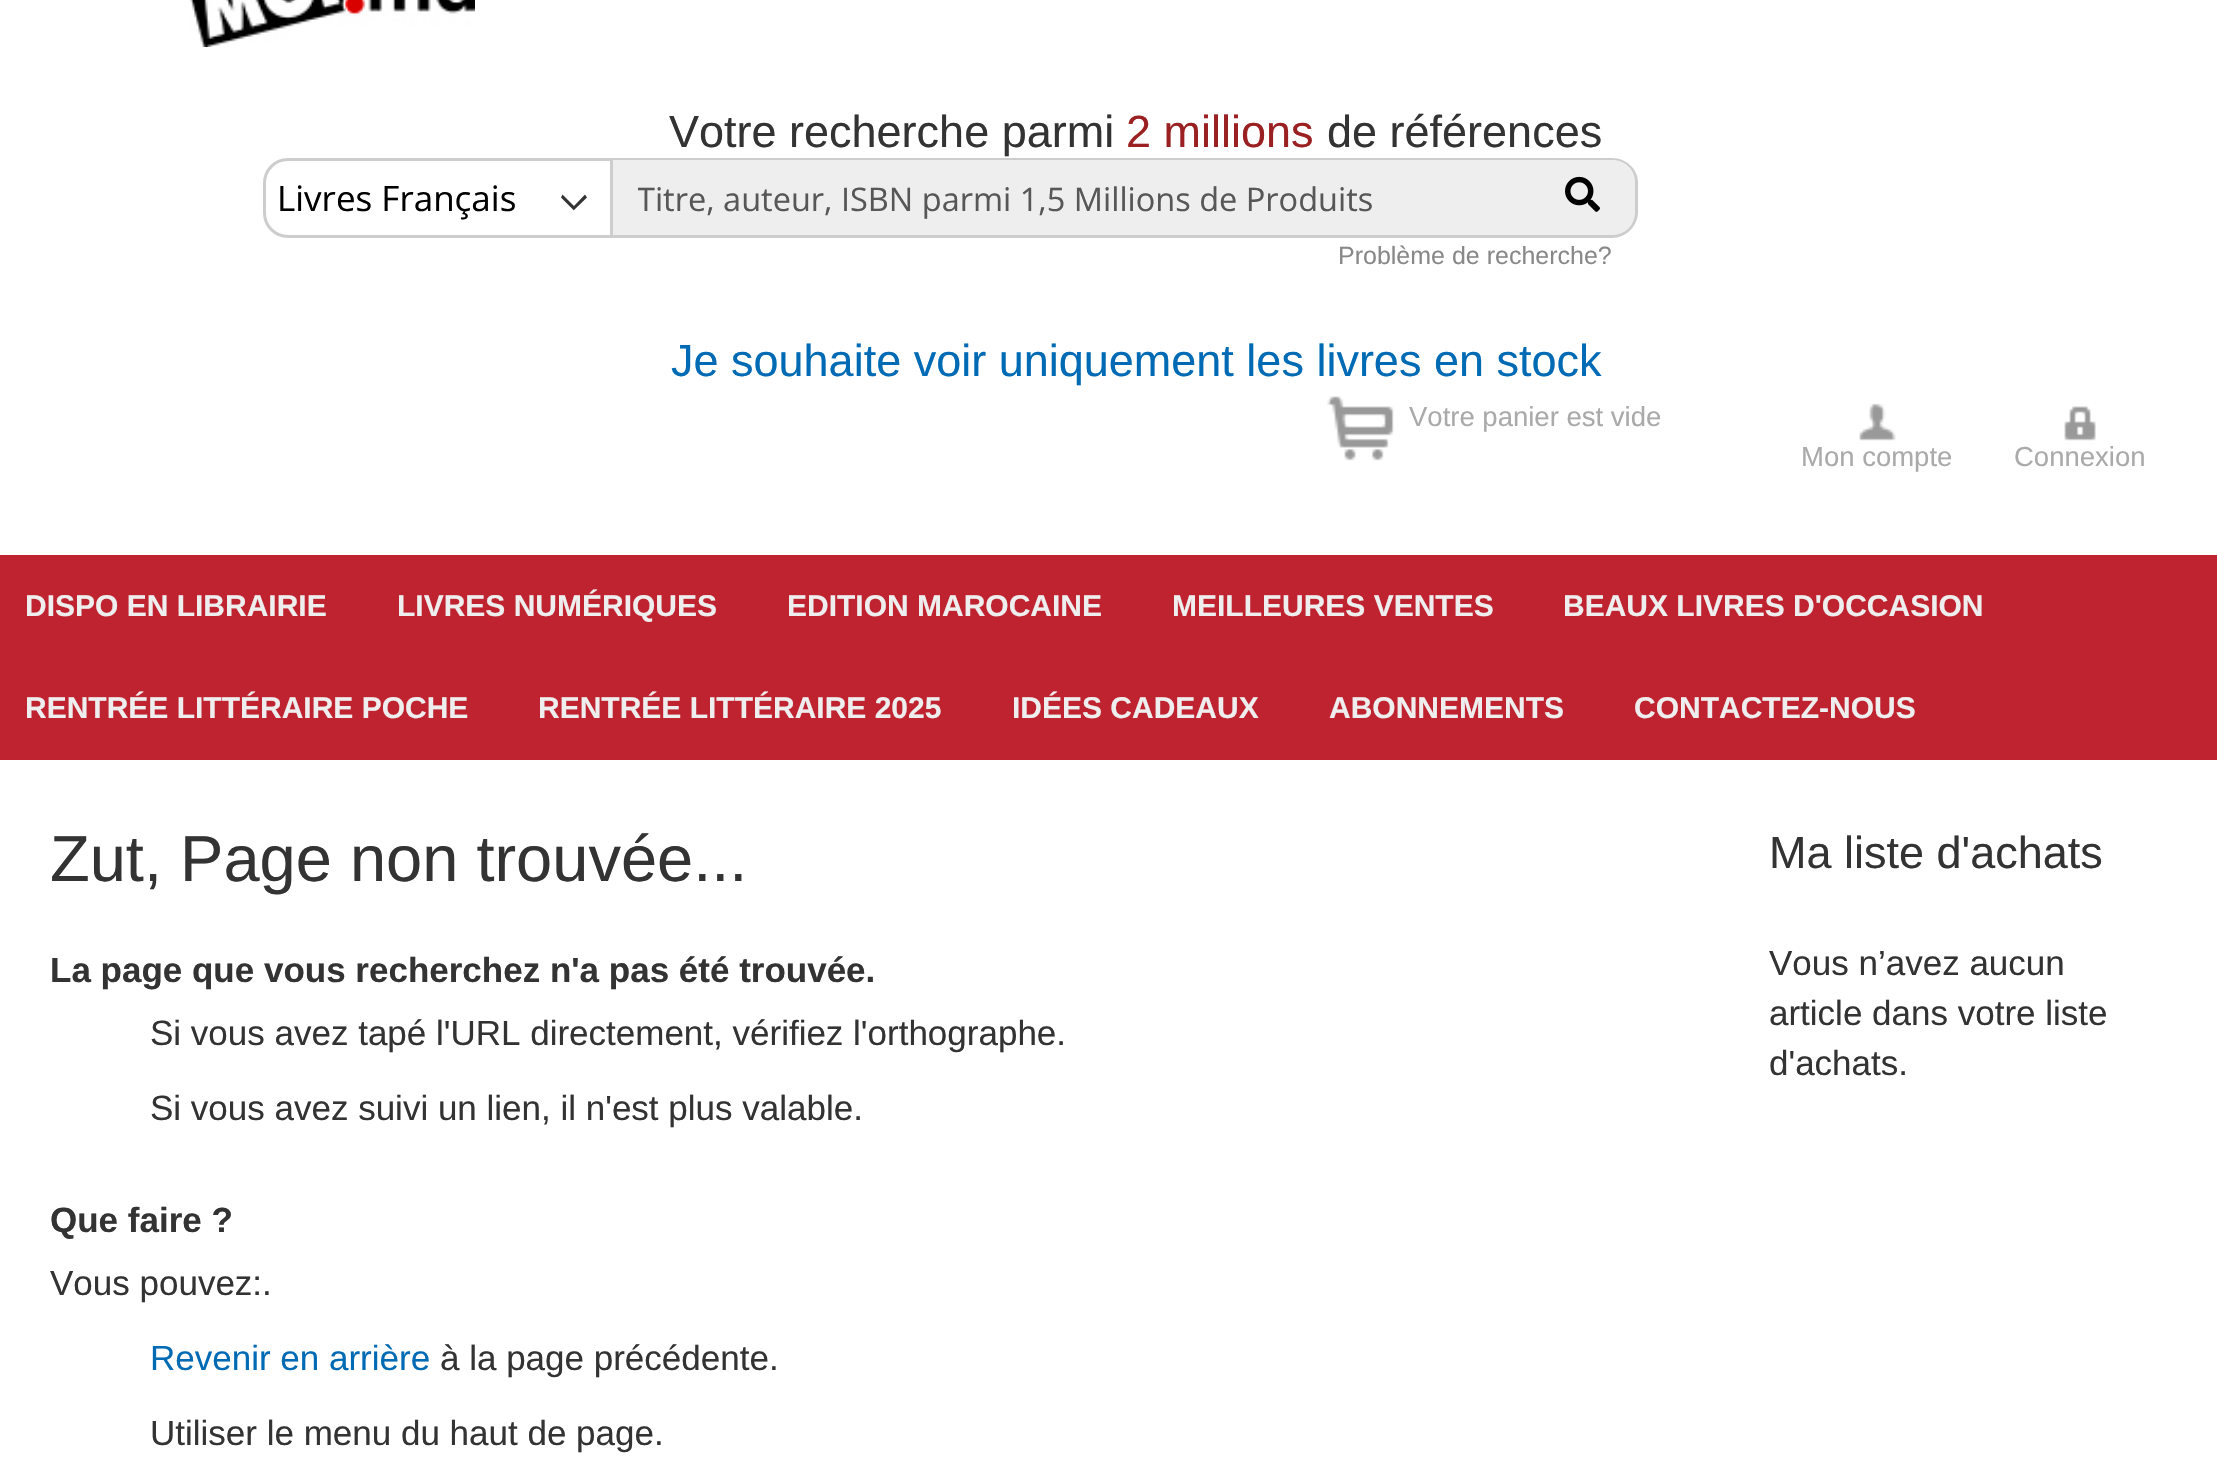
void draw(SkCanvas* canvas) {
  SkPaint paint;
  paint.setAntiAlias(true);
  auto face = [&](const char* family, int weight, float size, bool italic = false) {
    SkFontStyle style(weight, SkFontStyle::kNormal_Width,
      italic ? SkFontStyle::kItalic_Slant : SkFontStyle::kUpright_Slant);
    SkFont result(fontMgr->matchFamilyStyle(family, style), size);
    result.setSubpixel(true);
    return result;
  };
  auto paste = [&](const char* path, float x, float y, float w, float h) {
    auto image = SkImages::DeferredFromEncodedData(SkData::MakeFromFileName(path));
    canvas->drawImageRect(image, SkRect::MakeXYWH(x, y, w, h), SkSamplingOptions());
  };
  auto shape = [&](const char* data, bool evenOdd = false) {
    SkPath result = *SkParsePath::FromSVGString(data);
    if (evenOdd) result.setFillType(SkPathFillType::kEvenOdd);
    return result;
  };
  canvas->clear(0xffffffff);
  paste("img/1.png", 189, 0, 286, 47);
  paint.setColor(0xff333333);
  canvas->drawPath(shape("M574 210L587 197.5L585 194.5L574 206L562.5 194.5L561 197.5L574 210.5Z", true), paint);
  paint.setStroke(true);
  paint.setStrokeWidth(3);
  paint.setColor(0xffcdcdcd);
  canvas->drawPath(shape("M288 159.5H611.5V236.5H288C275 236.5 264.5 226 264.5 213V183C264.5 170 275 159.5 288 159.5Z"), paint);
  paint.setStroke(false);
  paint.setColor(0xffeeeeee);
  canvas->drawPath(shape("M613 160H1612C1624.5 160 1635 170.5 1635 183V212C1635 224.5 1624.5 235 1612 235H613Z"), paint);
  paint.setColor(0xffcdcdcd);
  canvas->drawPath(shape("M612 158H1612C1626 158 1638 169 1638 182V212C1638 226 1626 238 1612 238H612ZM612 160H1612C1625 160 1635 170 1635 182V212C1635 225 1625 235 1612 235H612Z", true), paint);
  paste("img/2.png", 1565, 176, 35, 36);
  paste("img/3.png", 1327, 396, 67, 65);
  paste("img/4.png", 1859, 403, 37, 38);
  paste("img/5.png", 2064, 406, 32, 35);
  paint.setColor(0xffbf2330);
  canvas->drawRect(SkRect::MakeXYWH(0, 555, 2217, 205), paint);
  auto f0 = face("Liberation Sans", 400, 45);
  paint.setColor(0xff333333);
  canvas->drawString("Votre recherche parmi", 669, 147, f0, paint);
  paint.setColor(0xff9a2022);
  canvas->drawString("2 millions", 1126, 147, f0, paint);
  paint.setColor(0xff333333);
  canvas->drawString("de références", 1327, 147, f0, paint);
  auto f1 = face("Open Sans", 400, 35);
  paint.setColor(0xff000000);
  canvas->drawString("Livres Français", 277, 211, f1, paint);
  canvas->save();
  canvas->clipRect(SkRect::MakeXYWH(638, 175, 932, 45));
  auto f2 = face("Open Sans", 400, 32.5f);
  paint.setColor(0xff575757);
  canvas->drawString("Titre, auteur, ISBN parmi 1,5 Millions de Produits", 637, 211, f2, paint);
  canvas->restore();
  auto f3 = face("Liberation Sans", 400, 25);
  paint.setColor(0xff888888);
  canvas->drawString("Problème de recherche?", 1338, 264, f3, paint);
  paint.setColor(0xff006bb4);
  canvas->drawString("Je souhaite voir uniquement les livres en stock", 671, 376, f0, paint);
  auto f4 = face("Liberation Sans", 400, 27.5f);
  paint.setColor(0xffaaaaaa);
  {
    const struct { const char* s; float x, y; } items[] = {
      {"Votre panier est vide", 1409, 426},
      {"Mon compte", 1801, 466},
      {"Connexion", 2014, 466},
    };
    for (auto [s, x, y] : items) {
      canvas->drawString(s, x, y, f4, paint);
    }
  }
  auto f5 = face("Liberation Sans", 700, 30);
  paint.setColor(0xffeeeeee);
  {
    const struct { const char* s; float x, y; } items[] = {
      {"DISPO EN LIBRAIRIE", 25, 616},
      {"LIVRES NUMÉRIQUES", 397, 616},
      {"EDITION MAROCAINE", 787, 616},
      {"MEILLEURES VENTES", 1172, 616},
      {"BEAUX LIVRES D'OCCASION", 1563, 616},
      {"RENTRÉE LITTÉRAIRE POCHE", 25, 718},
      {"RENTRÉE LITTÉRAIRE 2025", 538, 718},
      {"IDÉES CADEAUX", 1012, 718},
      {"ABONNEMENTS", 1329, 718},
      {"CONTACTEZ-NOUS", 1634, 718},
    };
    for (auto [s, x, y] : items) {
      canvas->drawString(s, x, y, f5, paint);
    }
  }
  auto f6 = face("Liberation Sans", 400, 65);
  paint.setColor(0xff333333);
  canvas->drawString("Zut, Page non trouvée...", 50, 881, f6, paint);
  auto f7 = face("Liberation Sans", 700, 35);
  canvas->drawString("La page que vous recherchez n'a pas été trouvée.", 50, 982, f7, paint);
  auto f8 = face("Liberation Sans", 400, 35);
  canvas->drawString("Si vous avez tapé l'URL directement, vérifiez l'orthographe.", 150, 1045, f8, paint);
  canvas->drawString("Si vous avez suivi un lien, il n'est plus valable.", 150, 1120, f8, paint);
  canvas->drawString("Que faire ?", 50, 1232, f7, paint);
  canvas->drawString("Vous pouvez:.", 50, 1295, f8, paint);
  paint.setColor(0xff006bb4);
  canvas->drawString("Revenir en arrière", 150, 1370, f8, paint);
  paint.setColor(0xff333333);
  canvas->drawString("à la page précédente.", 440, 1370, f8, paint);
  canvas->drawString("Utiliser le menu du haut de page.", 150, 1445, f8, paint);
  canvas->drawString("Ma liste d'achats", 1769, 868, f0, paint);
  {
    const struct { const char* s; float x, y; } items[] = {
      {"Vous n’avez aucun", 1769, 975},
      {"article dans votre liste", 1769, 1025},
      {"d'achats.", 1769, 1075},
    };
    for (auto [s, x, y] : items) {
      canvas->drawString(s, x, y, f8, paint);
    }
  }
}
